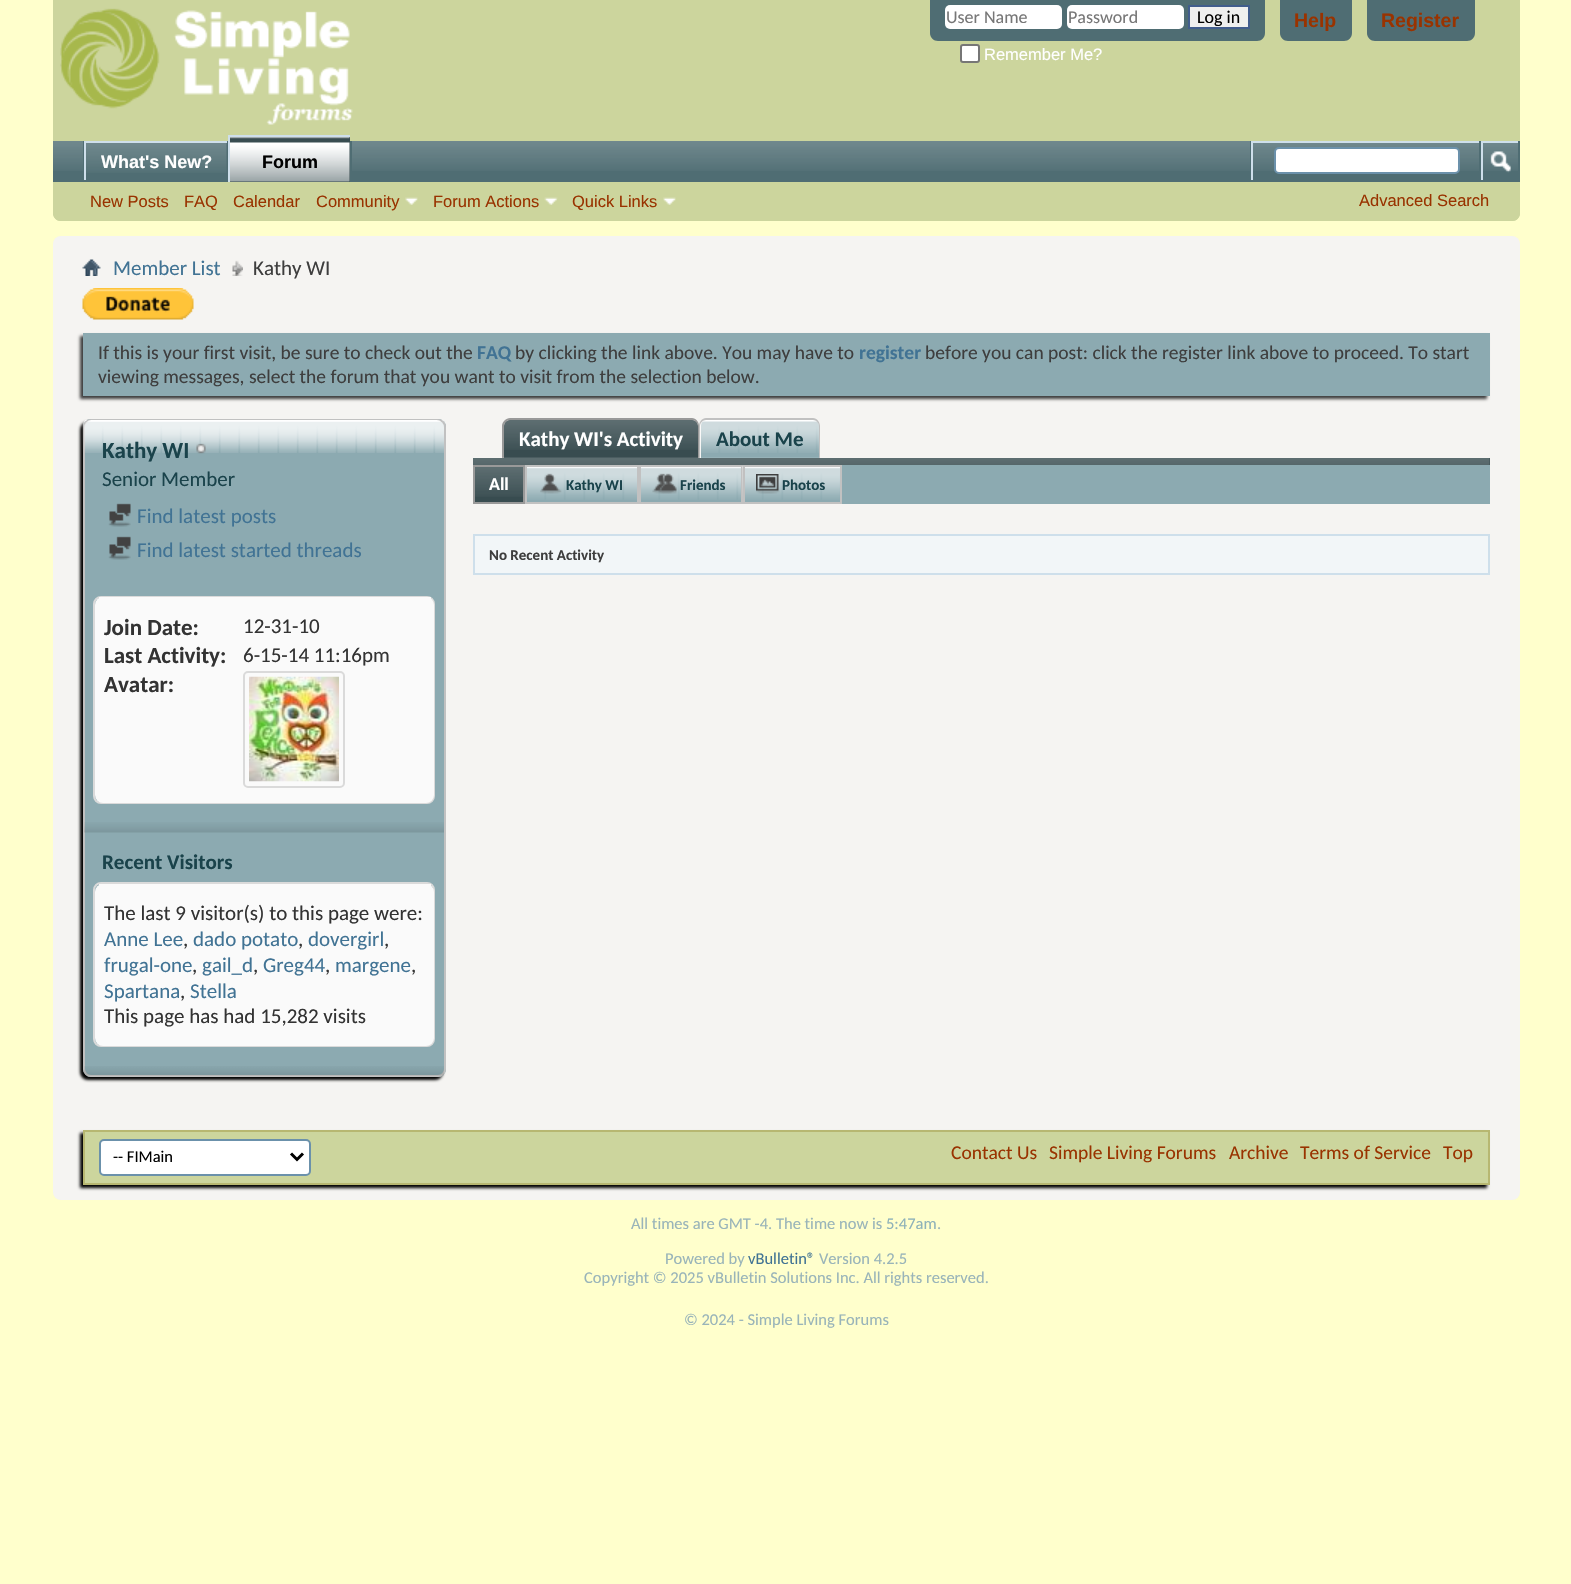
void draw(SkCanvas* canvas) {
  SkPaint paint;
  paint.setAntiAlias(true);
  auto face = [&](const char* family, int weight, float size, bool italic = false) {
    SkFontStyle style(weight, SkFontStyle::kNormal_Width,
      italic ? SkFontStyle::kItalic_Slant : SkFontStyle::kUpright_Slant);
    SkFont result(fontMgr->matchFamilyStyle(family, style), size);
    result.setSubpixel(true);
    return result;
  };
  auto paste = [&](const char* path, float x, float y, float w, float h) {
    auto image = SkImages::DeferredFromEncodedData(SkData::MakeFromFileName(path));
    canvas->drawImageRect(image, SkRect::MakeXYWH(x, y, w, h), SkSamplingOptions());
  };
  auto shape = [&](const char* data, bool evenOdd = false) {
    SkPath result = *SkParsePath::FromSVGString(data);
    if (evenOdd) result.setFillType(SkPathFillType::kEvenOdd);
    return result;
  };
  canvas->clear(0xffffffcc);
  paint.setColor(0xffccd59d);
  canvas->drawPath(shape("M53 0H1520V213C1520 217.5 1516.5 221 1512 221H61C56.5 221 53 217.5 53 213Z"), paint);
  paste("img/1.png", 60, 8, 293, 117);
  paint.setColor(0xff4f6d73);
  canvas->drawPath(shape("M930 0H1265V33C1265 37.5 1261.5 41 1257 41H938C933.5 41 930 37.5 930 33Z"), paint);
  paint.setColor(0xffffffff);
  canvas->drawRoundRect(SkRect::MakeXYWH(945, 5, 117, 24), 5, 5, paint);
  canvas->drawRoundRect(SkRect::MakeXYWH(1067, 5, 117, 24), 5, 5, paint);
  paint.setColor(0xffefefef);
  canvas->drawRect(SkRect::MakeXYWH(1189, 6, 60, 22), paint);
  paint.setStroke(true);
  paint.setStrokeWidth(2);
  paint.setColor(0xff415d8d);
  canvas->drawRect(SkRect::MakeXYWH(1189, 6, 60, 22), paint);
  paint.setStroke(false);
  paint.setColor(0xffffffff);
  canvas->drawRoundRect(SkRect::MakeXYWH(961, 45, 18, 17), 2, 2, paint);
  paint.setStroke(true);
  paint.setColor(0xff767676);
  canvas->drawRoundRect(SkRect::MakeXYWH(961, 45, 18, 17), 2, 2, paint);
  paint.setStroke(false);
  paint.setColor(0xff4f6d73);
  canvas->drawPath(shape("M1280 0H1352V33C1352 37.5 1348.5 41 1344 41H1288C1283.5 41 1280 37.5 1280 33Z"), paint);
  canvas->drawPath(shape("M1367 0H1475V33C1475 37.5 1471.5 41 1467 41H1375C1370.5 41 1367 37.5 1367 33Z"), paint);
  paint.setColor(0xffccd59d);
  canvas->drawPath(shape("M53 141H1520V213C1520 217.5 1516.5 221 1512 221H61C56.5 221 53 217.5 53 213Z"), paint);
  paint.setColor(0xff4f6d73);
  canvas->drawRect(SkRect::MakeXYWH(53, 141, 1467, 39), paint);
  paste("img/2.png", 52, 141, 1466, 30);
  {
    const struct { float x, y, w, h; SkColor color; } items[] = {
      {227, 141, 1, 41, 0xff4f6d73},
      {83, 141, 1, 41, 0xff4f6d73},
      {86, 143, 141, 28, 0xff4f6d73},
    };
    for (auto [x, y, w, h, color] : items) {
      paint.setColor(color);
      canvas->drawRect(SkRect::MakeXYWH(x, y, w, h), paint);
    }
  }
  paste("img/3.png", 86, 143, 141, 30);
  {
    const struct { float x, y, w, h; SkColor color; } items[] = {
      {84, 141, 143, 2, 0xffcedfeb},
      {84, 141, 2, 41, 0xffcedfeb},
      {350, 141, 2, 30, 0xff4f6d73},
      {53, 180, 1467, 2, 0xff4f6d73},
      {230, 137, 120, 45, 0xff384c50},
    };
    for (auto [x, y, w, h, color] : items) {
      paint.setColor(color);
      canvas->drawRect(SkRect::MakeXYWH(x, y, w, h), paint);
    }
  }
  paste("img/4.png", 230, 137, 120, 45);
  paint.setColor(0xffcedfeb);
  canvas->drawRect(SkRect::MakeXYWH(228, 135, 122, 2), paint);
  canvas->drawRect(SkRect::MakeXYWH(228, 135, 2, 47), paint);
  paste("img/5.png", 405, 197, 13, 8);
  paste("img/6.png", 544, 197, 14, 8);
  paste("img/7.png", 663, 197, 13, 8);
  {
    const struct { float x, y, w, h; SkColor color; } items[] = {
      {1250, 141, 1, 30, 0xff4f6d73},
      {1251, 141, 228, 2, 0xffcedfeb},
      {1251, 141, 2, 39, 0xffcedfeb},
    };
    for (auto [x, y, w, h, color] : items) {
      paint.setColor(color);
      canvas->drawRect(SkRect::MakeXYWH(x, y, w, h), paint);
    }
  }
  paint.setColor(0xffffffff);
  canvas->drawRoundRect(SkRect::MakeXYWH(1275, 148, 184, 25), 4, 4, paint);
  paint.setStroke(true);
  paint.setColor(0xff6b91ab);
  canvas->drawRoundRect(SkRect::MakeXYWH(1275, 148, 184, 25), 4, 4, paint);
  paint.setStroke(false);
  {
    const struct { float x, y, w, h; SkColor color; } items[] = {
      {1479, 141, 2, 30, 0xff4f6d73},
      {1481, 141, 37, 2, 0xffcedfeb},
      {1481, 141, 2, 39, 0xffcedfeb},
    };
    for (auto [x, y, w, h, color] : items) {
      paint.setColor(color);
      canvas->drawRect(SkRect::MakeXYWH(x, y, w, h), paint);
    }
  }
  paste("img/8.png", 1490, 151, 21, 22);
  paint.setColor(0xfff5f4f2);
  canvas->drawRoundRect(SkRect::MakeXYWH(53, 236, 1467, 964), 8, 8, paint);
  paste("img/9.png", 82, 259, 19, 17);
  paste("img/10.png", 232, 260, 11, 16);
  paste("img/11.png", 82, 288, 112, 32);
  paint.setColor(0xff3e3e3e);
  paint.setMaskFilter(SkMaskFilter::MakeBlur(kNormal_SkBlurStyle, 1.5f));
  canvas->drawRect(SkRect::MakeXYWH(80, 336, 1407, 63), paint);
  paint.setMaskFilter(nullptr);
  paint.setColor(0xff8caab1);
  canvas->drawRect(SkRect::MakeXYWH(83, 333, 1407, 63), paint);
  paint.setColor(0xff000000);
  paint.setMaskFilter(SkMaskFilter::MakeBlur(kNormal_SkBlurStyle, 1.5f));
  canvas->drawRoundRect(SkRect::MakeXYWH(80, 422, 363, 658), 8, 8, paint);
  paint.setMaskFilter(nullptr);
  paint.setColor(0xff8caab1);
  canvas->drawRoundRect(SkRect::MakeXYWH(83, 419, 363, 658), 8, 8, paint);
  paste("img/12.png", 82, 420, 364, 33);
  paint.setStroke(true);
  paint.setColor(0xffc1c1c1);
  canvas->drawRoundRect(SkRect::MakeXYWH(84, 420, 361, 656), 7, 7, paint);
  paste("img/13.png", 84, 420, 360, 33);
  paste("img/14.png", 196, 443, 10, 11);
  paste("img/15.png", 108, 503, 23, 24);
  paste("img/15.png", 108, 536, 23, 24);
  paint.setColor(0xffdadada);
  canvas->drawRoundRect(SkRect::MakeXYWH(94, 597, 340, 206), 7, 7, paint);
  paint.setStroke(false);
  paint.setColor(0xfffafafa);
  canvas->drawRoundRect(SkRect::MakeXYWH(95, 597, 339, 206), 8, 8, paint);
  canvas->drawRect(SkRect::MakeXYWH(99, 597, 332, 2), paint);
  paint.setStroke(true);
  paint.setColor(0xffdadada);
  canvas->drawRoundRect(SkRect::MakeXYWH(244, 672, 100, 115), 4, 4, paint);
  paste("img/16.png", 249, 676, 90, 106);
  paste("img/17.png", 84, 822, 360, 11);
  canvas->drawRoundRect(SkRect::MakeXYWH(94, 883, 340, 163), 7, 7, paint);
  paint.setStroke(false);
  paint.setColor(0xfffafafa);
  canvas->drawRoundRect(SkRect::MakeXYWH(95, 884, 339, 162), 8, 8, paint);
  canvas->drawRect(SkRect::MakeXYWH(99, 884, 332, 2), paint);
  paste("img/18.png", 84, 1066, 360, 10);
  paint.setColor(0xff384c50);
  canvas->drawPath(shape("M510 420H692C695.5 420 698 422.5 698 426V458H504V426C504 422.5 506.5 420 510 420Z"), paint);
  paste("img/19.png", 504, 420, 194, 30);
  paint.setColor(0xff999999);
  canvas->drawPath(shape("M510 418H692C696 418 699 422 699 426V458H502V426C502 422 506 418 510 418ZM510 420H692C695 420 698 423 698 426V458H504V426C504 423 507 420 510 420Z", true), paint);
  paint.setColor(0xff8caab1);
  canvas->drawPath(shape("M707 420H813C816.5 420 819 422.5 819 426V458H701V426C701 422.5 703.5 420 707 420Z"), paint);
  paste("img/20.png", 699, 420, 121, 33);
  paint.setColor(0xffc1c1c1);
  canvas->drawPath(shape("M706 418H813C817 418 820 422 820 426V458H699V426C699 422 702 418 706 418ZM706 420H813C816 420 819 423 819 426V458H700V426C700 423 703 420 706 420Z", true), paint);
  paint.setColor(0xff384c50);
  canvas->drawRect(SkRect::MakeXYWH(473, 458, 1017, 7), paint);
  paste("img/21.png", 473, 457, 1017, 8);
  paint.setColor(0xff8caab1);
  canvas->drawRect(SkRect::MakeXYWH(527, 465, 963, 39), paint);
  paint.setColor(0xff384c50);
  canvas->drawRect(SkRect::MakeXYWH(475, 467, 48, 35), paint);
  paste("img/22.png", 475, 467, 48, 30);
  paint.setStroke(true);
  paint.setColor(0xff999999);
  canvas->drawRect(SkRect::MakeXYWH(474, 466, 50, 37), paint);
  paste("img/23.png", 527, 467, 110, 33);
  paint.setColor(0xffc1c1c1);
  canvas->drawRect(SkRect::MakeXYWH(526, 466, 112, 37), paint);
  paste("img/24.png", 540, 473, 22, 21);
  paste("img/25.png", 641, 467, 100, 33);
  canvas->drawRect(SkRect::MakeXYWH(640, 466, 102, 37), paint);
  paste("img/26.png", 652, 473, 25, 21);
  paste("img/27.png", 742, 466, 98, 34);
  canvas->drawRect(SkRect::MakeXYWH(744, 466, 97, 37), paint);
  paste("img/28.png", 756, 474, 24, 20);
  paint.setStroke(false);
  paint.setColor(0xfff2f6f8);
  canvas->drawRect(SkRect::MakeXYWH(474, 535, 1015, 39), paint);
  paint.setStroke(true);
  paint.setColor(0xffcedfeb);
  canvas->drawRect(SkRect::MakeXYWH(474, 535, 1015, 39), paint);
  paint.setStroke(false);
  paint.setColor(0xff000000);
  paint.setMaskFilter(SkMaskFilter::MakeBlur(kNormal_SkBlurStyle, 1.5f));
  canvas->drawRect(SkRect::MakeXYWH(80, 1133, 1407, 55), paint);
  paint.setMaskFilter(nullptr);
  paint.setColor(0xffccd59d);
  canvas->drawRect(SkRect::MakeXYWH(84, 1131, 1405, 53), paint);
  paint.setStroke(true);
  paint.setColor(0xffb7b771);
  canvas->drawRect(SkRect::MakeXYWH(84, 1131, 1405, 53), paint);
  paint.setStroke(false);
  paint.setColor(0xffffffff);
  canvas->drawRoundRect(SkRect::MakeXYWH(100, 1140, 210, 35), 4, 4, paint);
  paint.setStroke(true);
  paint.setColor(0xff6b91ab);
  canvas->drawRoundRect(SkRect::MakeXYWH(100, 1140, 210, 35), 4, 4, paint);
  paint.setStrokeWidth(3);
  paint.setColor(0xff000000);
  canvas->drawPath(shape("M291 1153.5L297 1159.5L303 1153.5"), paint);
  auto f0 = face("Carlito", 400, 18);
  paint.setStroke(false);
  paint.setColor(0xff777777);
  canvas->drawString("User Name", 946, 23, f0, paint);
  canvas->drawString("Password", 1068, 23, f0, paint);
  paint.setColor(0xff000000);
  canvas->drawString("Log in", 1197, 23, f0, paint);
  auto f1 = face("Liberation Sans", 400, 16.5f);
  paint.setColor(0xffffffff);
  canvas->drawString("Remember Me?", 984, 60, f1, paint);
  auto f2 = face("Liberation Sans", 700, 19.5f);
  paint.setColor(0xff993300);
  canvas->drawString("Help", 1294, 27, f2, paint);
  canvas->drawString("Register", 1381, 27, f2, paint);
  auto f3 = face("Liberation Sans", 700, 18);
  paint.setColor(0xffffffff);
  canvas->drawString("What's New?", 101, 168, f3, paint);
  paint.setColor(0xff000000);
  canvas->drawString("Forum", 262, 168, f3, paint);
  paint.setColor(0xff993300);
  {
    const struct { const char* s; float x, y; } items[] = {
      {"New Posts", 90, 207},
      {"FAQ", 184, 207},
      {"Calendar", 233, 207},
      {"Community", 316, 207},
      {"Forum Actions", 433, 207},
      {"Quick Links", 572, 207},
      {"Advanced Search", 1359, 206},
    };
    for (auto [s, x, y] : items) {
      canvas->drawString(s, x, y, f1, paint);
    }
  }
  auto f4 = face("Carlito", 400, 21);
  paint.setColor(0xff417394);
  canvas->drawString("Member List", 113, 275, f4, paint);
  paint.setColor(0xff3e3e3e);
  canvas->drawString("Kathy WI", 253, 275, f4, paint);
  auto f5 = face("Carlito", 400, 19.5f);
  canvas->drawString("If this is your first visit, be sure to check out the", 98, 359, f5, paint);
  auto f6 = face("Carlito", 700, 19.5f);
  paint.setColor(0xff417394);
  canvas->drawString("FAQ", 477, 359, f6, paint);
  paint.setColor(0xff3e3e3e);
  canvas->drawString("by clicking the link above. You may have to", 515, 359, f5, paint);
  paint.setColor(0xff417394);
  canvas->drawString("register", 859, 359, f6, paint);
  paint.setColor(0xff3e3e3e);
  canvas->drawString("before you can post: click the register link above to proceed. To start", 925, 359, f5, paint);
  canvas->drawString("viewing messages, select the forum that you want to visit from the selection below.", 98, 383, f5, paint);
  auto f7 = face("Carlito", 700, 23);
  paint.setColor(0xff1a434b);
  canvas->drawString("Kathy WI", 102, 458, f7, paint);
  canvas->drawString("Senior Member", 102, 486, f4, paint);
  paint.setColor(0xff417394);
  canvas->drawString("Find latest posts", 137, 523, f4, paint);
  canvas->drawString("Find latest started threads", 137, 557, f4, paint);
  paint.setColor(0xff333333);
  canvas->drawString("Join Date:", 104, 635, f7, paint);
  canvas->drawString("12-31-10", 243, 633, f4, paint);
  canvas->drawString("Last Activity:", 104, 663, f7, paint);
  canvas->drawString("6-15-14 11:16pm", 243, 662, f4, paint);
  canvas->drawString("Avatar:", 104, 692, f7, paint);
  auto f8 = face("Carlito", 700, 21);
  paint.setColor(0xff1a434b);
  canvas->drawString("Recent Visitors", 102, 869, f8, paint);
  paint.setColor(0xff333333);
  canvas->drawString("The last 9 visitor(s) to this page were:", 104, 920, f4, paint);
  paint.setColor(0xff417394);
  canvas->drawString("Anne Lee", 104, 946, f4, paint);
  paint.setColor(0xff333333);
  canvas->drawString(",", 183, 946, f4, paint);
  paint.setColor(0xff417394);
  canvas->drawString("dado potato", 193, 946, f4, paint);
  paint.setColor(0xff333333);
  canvas->drawString(",", 298, 946, f4, paint);
  paint.setColor(0xff417394);
  canvas->drawString("dovergirl", 308, 946, f4, paint);
  paint.setColor(0xff333333);
  canvas->drawString(",", 384, 946, f4, paint);
  paint.setColor(0xff417394);
  canvas->drawString("frugal-one", 104, 972, f4, paint);
  paint.setColor(0xff333333);
  canvas->drawString(",", 192, 972, f4, paint);
  paint.setColor(0xff417394);
  canvas->drawString("gail_d", 202, 972, f4, paint);
  paint.setColor(0xff333333);
  canvas->drawString(",", 253, 972, f4, paint);
  paint.setColor(0xff417394);
  canvas->drawString("Greg44", 263, 972, f4, paint);
  paint.setColor(0xff333333);
  canvas->drawString(",", 325, 972, f4, paint);
  paint.setColor(0xff417394);
  canvas->drawString("margene", 335, 972, f4, paint);
  paint.setColor(0xff333333);
  canvas->drawString(",", 411, 972, f4, paint);
  paint.setColor(0xff417394);
  canvas->drawString("Spartana", 104, 998, f4, paint);
  paint.setColor(0xff333333);
  canvas->drawString(",", 180, 998, f4, paint);
  paint.setColor(0xff417394);
  canvas->drawString("Stella", 190, 998, f4, paint);
  paint.setColor(0xff333333);
  canvas->drawString("This page has had 15,282 visits", 104, 1023, f4, paint);
  paint.setColor(0xffffffff);
  canvas->drawString("Kathy WI's Activity", 519, 446, f8, paint);
  paint.setColor(0xff1a434b);
  canvas->drawString("About Me", 716, 446, f8, paint);
  auto f9 = face("Carlito", 700, 18);
  paint.setColor(0xffffffff);
  canvas->drawString("All", 489, 490, f9, paint);
  auto f10 = face("Carlito", 700, 15);
  paint.setColor(0xff1a434b);
  {
    const struct { const char* s; float x, y; } items[] = {
      {"Kathy WI", 566, 490},
      {"Friends", 680, 490},
      {"Photos", 782, 490},
    };
    for (auto [s, x, y] : items) {
      canvas->drawString(s, x, y, f10, paint);
    }
  }
  paint.setColor(0xff3e3e3e);
  canvas->drawString("No Recent Activity", 489, 560, f10, paint);
  auto f11 = face("Carlito", 400, 16.5f);
  paint.setColor(0xff000000);
  canvas->drawString("-- FIMain", 113, 1162, f11, paint);
  paint.setColor(0xff993300);
  {
    const struct { const char* s; float x, y; } items[] = {
      {"Contact Us", 951, 1159},
      {"Simple Living Forums", 1049, 1159},
      {"Archive", 1229, 1159},
      {"Terms of Service", 1300, 1159},
      {"Top", 1443, 1159},
    };
    for (auto [s, x, y] : items) {
      canvas->drawString(s, x, y, f5, paint);
    }
  }
  paint.setColor(0xff99b4b9);
  canvas->drawString("All times are GMT -4. The time now is", 631, 1229, f11, paint);
  paint.setColor(0xff8eb2b9);
  canvas->drawString("5:47am", 886, 1229, f11, paint);
  paint.setColor(0xff99b4b9);
  canvas->drawString(".", 937, 1229, f11, paint);
  canvas->drawString("Powered by", 665, 1264, f11, paint);
  paint.setColor(0xff417394);
  canvas->drawString("vBulletin®", 748, 1264, f11, paint);
  paint.setColor(0xff99b4b9);
  {
    const struct { const char* s; float x, y; } items[] = {
      {"Version 4.2.5", 819, 1264},
      {"Copyright © 2025 vBulletin Solutions Inc. All rights reserved.", 584, 1283},
      {"© 2024 - Simple Living Forums", 684, 1325},
    };
    for (auto [s, x, y] : items) {
      canvas->drawString(s, x, y, f11, paint);
    }
  }
}
